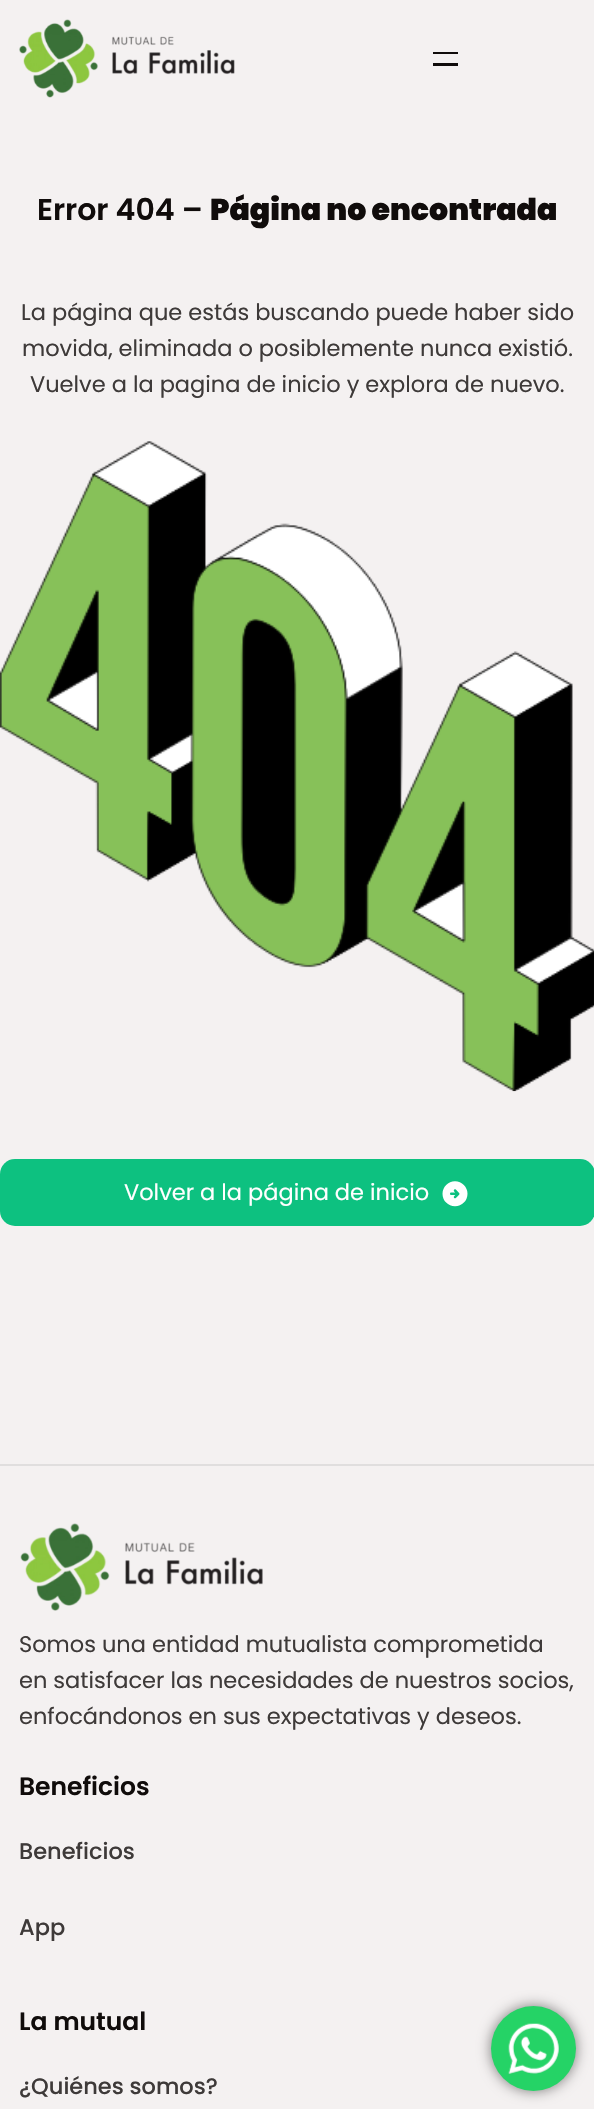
void draw(SkCanvas* canvas) {
  SkPaint paint;
  paint.setAntiAlias(true);
  auto face = [&](const char* family, int weight, float size, bool italic = false) {
    SkFontStyle style(weight, SkFontStyle::kNormal_Width,
      italic ? SkFontStyle::kItalic_Slant : SkFontStyle::kUpright_Slant);
    SkFont result(fontMgr->matchFamilyStyle(family, style), size);
    result.setSubpixel(true);
    return result;
  };
  auto paste = [&](const char* path, float x, float y, float w, float h) {
    auto image = SkImages::DeferredFromEncodedData(SkData::MakeFromFileName(path));
    canvas->drawImageRect(image, SkRect::MakeXYWH(x, y, w, h), SkSamplingOptions());
  };
  canvas->clear(0xfff4f1f1);
  paste("img/1.png", 19, 19, 216, 79);
  paint.setColor(0xff100c0b);
  canvas->drawRect(SkRect::MakeXYWH(433, 52, 25, 2), paint);
  canvas->drawRect(SkRect::MakeXYWH(433, 63, 25, 3), paint);
  paste("img/2.png", 0, 441, 594, 651);
  paint.setColor(0xff0dc180);
  canvas->drawRoundRect(SkRect::MakeXYWH(0, 1159, 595, 67), 15, 15, paint);
  paste("img/3.png", 442, 1181, 26, 26);
  paint.setColor(0xffe0dede);
  canvas->drawRect(SkRect::MakeXYWH(0, 1464, 594, 2), paint);
  paste("img/4.png", 20, 1523, 243, 88);
  paint.setColor(0x80000000);
  paint.setMaskFilter(SkMaskFilter::MakeBlur(kNormal_SkBlurStyle, 7));
  canvas->drawRoundRect(SkRect::MakeXYWH(491, 2006, 85, 85), 42.5f, 42.5f, paint);
  paint.setMaskFilter(nullptr);
  paint.setColor(0xff25d366);
  canvas->drawCircle(533.5f, 2048.5f, 42.5f, paint);
  paste("img/5.png", 508, 2023, 51, 51);
  auto f0 = face("Poppins", 600, 30);
  paint.setColor(0xff100c0b);
  canvas->drawString("Error 404 –", 37, 220, f0, paint);
  auto f1 = face("Poppins", 900, 30);
  canvas->drawString("Página no encontrada", 210, 220, f1, paint);
  auto f2 = face("Poppins", 400, 22.5f);
  paint.setColor(0xff3e3a39);
  {
    const struct { const char* s; float x, y; } items[] = {
      {"La página que estás buscando puede haber sido", 21, 320},
      {"movida, eliminada o posiblemente nunca existió.", 22, 356},
      {"Vuelve a la pagina de inicio y explora de nuevo.", 30, 392},
    };
    for (auto [s, x, y] : items) {
      canvas->drawString(s, x, y, f2, paint);
    }
  }
  paint.setColor(0xffffffff);
  canvas->drawString("Volver a la página de inicio", 124, 1200, f2, paint);
  paint.setColor(0xff3e3a39);
  {
    const struct { const char* s; float x, y; } items[] = {
      {"Somos una entidad mutualista comprometida", 19, 1652},
      {"en satisfacer las necesidades de nuestros socios,", 19, 1688},
      {"enfocándonos en sus expectativas y deseos.", 19, 1724},
    };
    for (auto [s, x, y] : items) {
      canvas->drawString(s, x, y, f2, paint);
    }
  }
  auto f3 = face("Poppins", 600, 25);
  paint.setColor(0xff100c0b);
  canvas->drawString("Beneficios", 19, 1795, f3, paint);
  auto f4 = face("Poppins", 500, 22.5f);
  paint.setColor(0xff3e3a39);
  canvas->drawString("Beneficios", 19, 1859, f4, paint);
  canvas->drawString("App", 19, 1935, f4, paint);
  paint.setColor(0xff100c0b);
  canvas->drawString("La mutual", 19, 2030, f3, paint);
  paint.setColor(0xff3e3a39);
  canvas->drawString("¿Quiénes somos?", 19, 2094, f4, paint);
}
